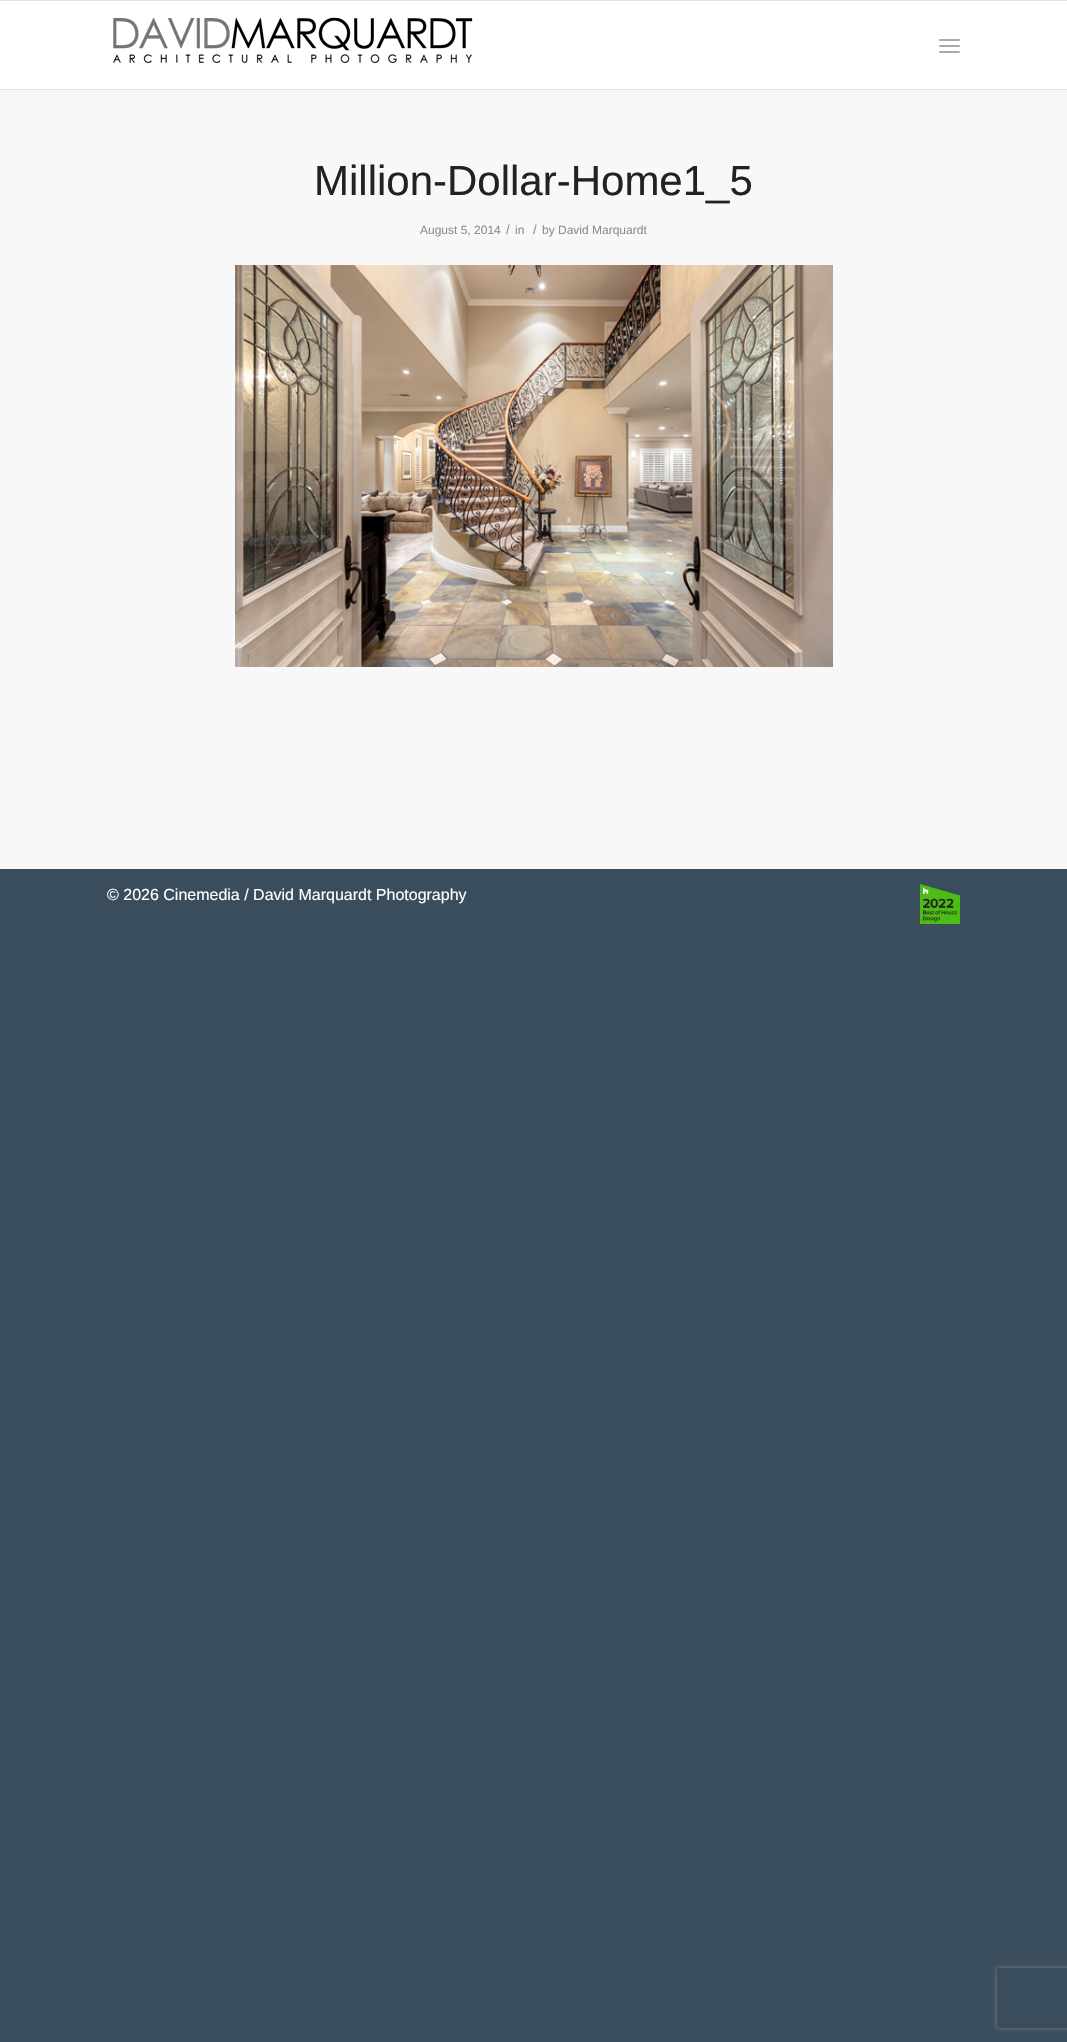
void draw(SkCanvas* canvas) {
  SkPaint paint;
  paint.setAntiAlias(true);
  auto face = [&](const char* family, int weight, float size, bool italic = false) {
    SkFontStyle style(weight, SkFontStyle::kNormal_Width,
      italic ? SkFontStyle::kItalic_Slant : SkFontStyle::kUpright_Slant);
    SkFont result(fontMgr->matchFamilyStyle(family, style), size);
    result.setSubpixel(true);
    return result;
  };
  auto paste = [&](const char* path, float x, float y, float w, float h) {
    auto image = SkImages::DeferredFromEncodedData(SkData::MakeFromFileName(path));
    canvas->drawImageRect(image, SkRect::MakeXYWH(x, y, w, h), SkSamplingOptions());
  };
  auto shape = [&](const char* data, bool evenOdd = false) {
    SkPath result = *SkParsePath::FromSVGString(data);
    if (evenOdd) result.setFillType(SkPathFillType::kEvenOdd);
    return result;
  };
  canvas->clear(0xff3a4d5c);
  {
    const struct { float x, y, w, h; SkColor color; } items[] = {
      {0, 0, 1067, 1, 0xffe1e1e1},
      {0, 89, 1067, 1, 0xffe1e1e1},
      {0, 1, 1067, 87, 0xffffffff},
    };
    for (auto [x, y, w, h, color] : items) {
      paint.setColor(color);
      canvas->drawRect(SkRect::MakeXYWH(x, y, w, h), paint);
    }
  }
  paste("img/1.png", 113, 17, 360, 47);
  paint.setColor(0xffaaaaaa);
  canvas->drawRoundRect(SkRect::MakeXYWH(939, 45, 21, 2), 1, 1, paint);
  canvas->drawRoundRect(SkRect::MakeXYWH(939, 39, 21, 2), 1, 1, paint);
  canvas->drawRoundRect(SkRect::MakeXYWH(939, 51, 21, 2), 1, 1, paint);
  paint.setColor(0xfff8f8f8);
  canvas->drawRect(SkRect::MakeXYWH(0, 90, 1067, 779), paint);
  paint.setColor(0xfffefefe);
  canvas->drawRect(SkRect::MakeXYWH(0, 88, 1067, 1), paint);
  paste("img/2.png", 235, 265, 598, 402);
  paste("img/3.png", 920, 884, 40, 40);
  canvas->save();
  canvas->clipPath(shape("M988 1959H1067V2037H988ZM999 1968H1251C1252 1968 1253 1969 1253 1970V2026C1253 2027 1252 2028 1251 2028H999C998 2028 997 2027 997 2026V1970C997 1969 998 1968 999 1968Z", true), true);
  paint.setColor(0xff808080);
  paint.setMaskFilter(SkMaskFilter::MakeBlur(kNormal_SkBlurStyle, 2.5f));
  canvas->drawRoundRect(SkRect::MakeXYWH(997, 1968, 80, 60), 2, 2, paint);
  paint.setMaskFilter(nullptr);
  canvas->restore();
  auto f0 = face("Liberation Sans", 400, 42);
  paint.setColor(0xff222222);
  canvas->drawString("Million-Dollar-Home1_5", 314, 195, f0, paint);
  auto f1 = face("Liberation Sans", 400, 12);
  paint.setColor(0xff8d8d8d);
  canvas->drawString("August 5, 2014", 420, 234, f1, paint);
  auto f2 = face("Liberation Sans", 400, 13);
  canvas->drawString("/", 506, 234, f2, paint);
  canvas->drawString("in", 515, 234, f1, paint);
  canvas->drawString("/", 533, 234, f2, paint);
  canvas->drawString("by David Marquardt", 542, 234, f1, paint);
  auto f3 = face("Liberation Sans", 400, 16);
  paint.setColor(0xffffffff);
  canvas->drawString("© 2026 Cinemedia / David Marquardt Photography", 107, 900, f3, paint);
}
